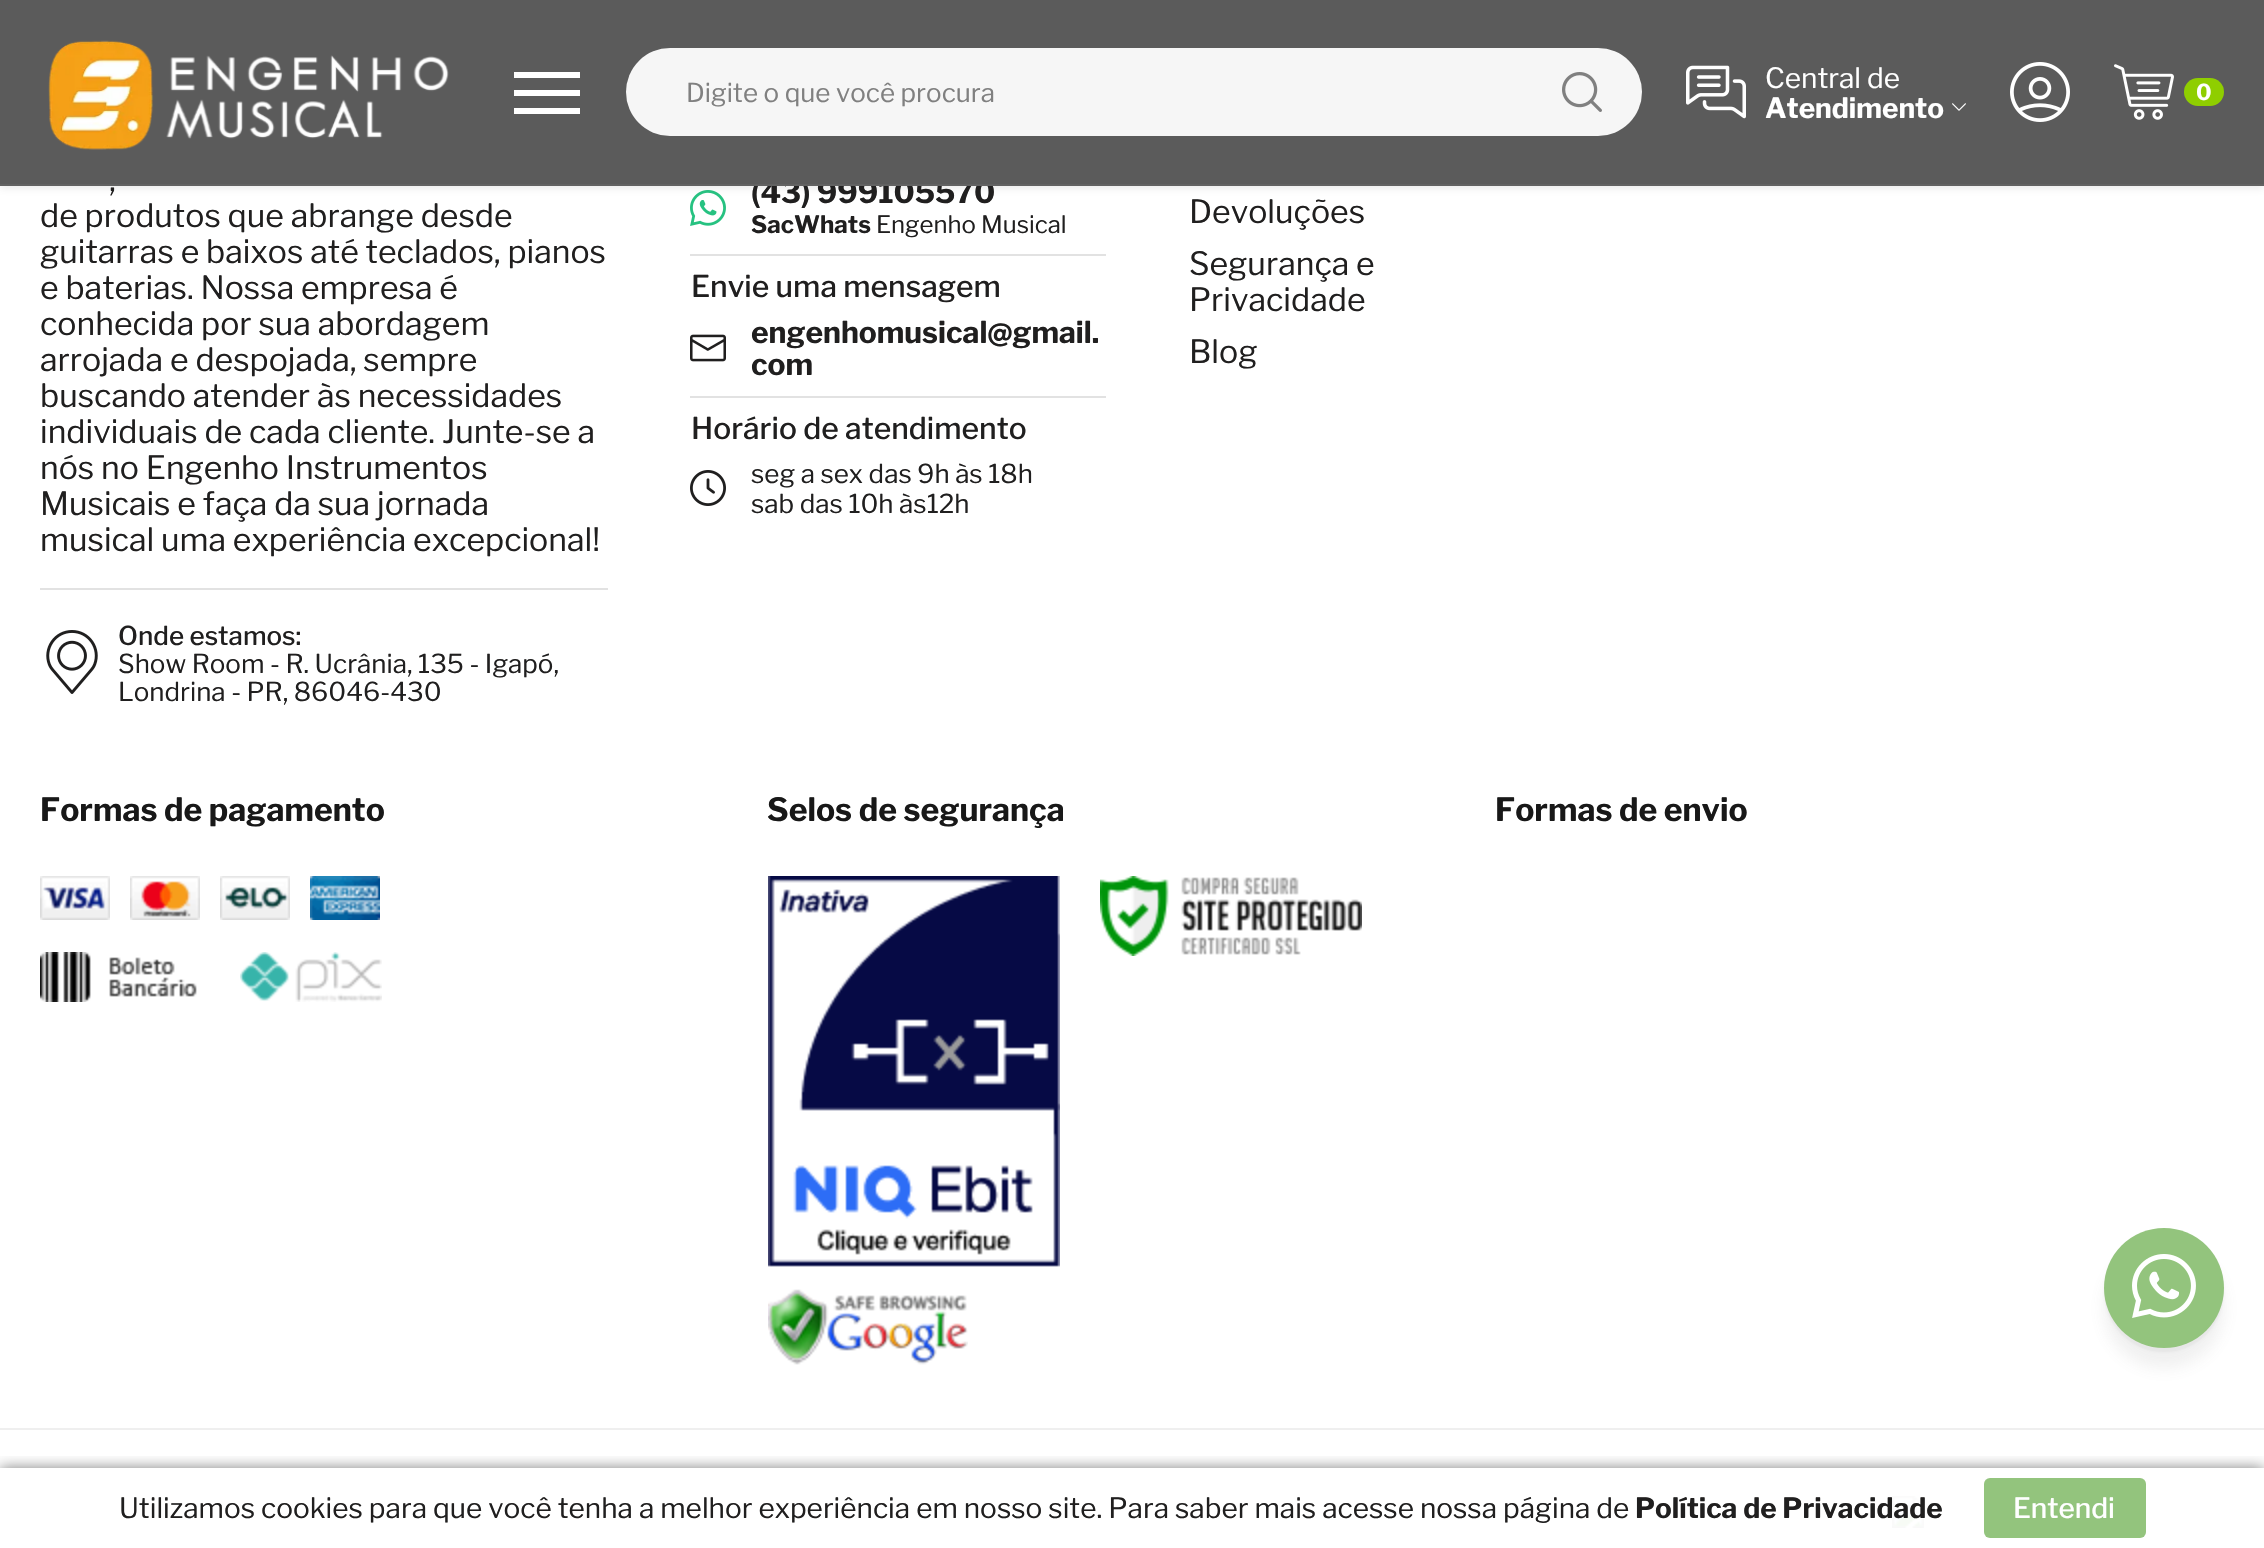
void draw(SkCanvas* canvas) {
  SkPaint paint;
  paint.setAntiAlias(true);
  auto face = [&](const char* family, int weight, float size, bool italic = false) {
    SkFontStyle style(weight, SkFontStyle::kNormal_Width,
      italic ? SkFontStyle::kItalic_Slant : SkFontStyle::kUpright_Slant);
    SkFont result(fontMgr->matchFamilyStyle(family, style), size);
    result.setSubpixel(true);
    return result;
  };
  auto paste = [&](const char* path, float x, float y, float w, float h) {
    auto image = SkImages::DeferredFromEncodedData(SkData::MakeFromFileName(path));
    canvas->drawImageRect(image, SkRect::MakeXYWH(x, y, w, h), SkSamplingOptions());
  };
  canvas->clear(0xffffffff);
  paste("img/8.png", 690, 190, 36, 36);
  paint.setColor(0x21525252);
  paint.setMaskFilter(SkMaskFilter::MakeBlur(kNormal_SkBlurStyle, 4));
  canvas->drawRect(SkRect::MakeXYWH(0, 2, 2264, 186), paint);
  paint.setMaskFilter(nullptr);
  paint.setColor(0xffe2e2e2);
  canvas->drawRect(SkRect::MakeXYWH(40, 588, 568, 2), paint);
  paste("img/7.png", 46, 630, 52, 64);
  canvas->drawRect(SkRect::MakeXYWH(690, 254, 416, 2), paint);
  canvas->drawRect(SkRect::MakeXYWH(690, 396, 416, 2), paint);
  paste("img/9.png", 690, 334, 36, 28);
  paste("img/10.png", 690, 470, 36, 36);
  paste("img/11.png", 40, 876, 70, 44);
  paste("img/12.png", 130, 876, 70, 44);
  paste("img/13.png", 220, 876, 70, 44);
  paste("img/14.png", 310, 876, 70, 44);
  paste("img/15.png", 40, 952, 157, 50);
  paste("img/16.png", 240, 952, 142, 50);
  paste("img/17.png", 768, 876, 292, 391);
  paste("img/18.png", 1100, 876, 262, 80);
  paste("img/19.png", 768, 1289, 200, 76);
  paint.setColor(0xffefefef);
  canvas->drawRect(SkRect::MakeXYWH(0, 1428, 2264, 2), paint);
  paste("img/20.png", 1892, 1496, 32, 32);
  paint.setColor(0x1a676767);
  paint.setMaskFilter(SkMaskFilter::MakeBlur(kNormal_SkBlurStyle, 8));
  canvas->drawRoundRect(SkRect::MakeXYWH(2104, 1248, 120, 120), 60, 60, paint);
  paint.setMaskFilter(nullptr);
  paint.setColor(0x0a000000);
  paint.setMaskFilter(SkMaskFilter::MakeBlur(kNormal_SkBlurStyle, 1));
  canvas->drawRoundRect(SkRect::MakeXYWH(2104, 1232, 120, 120), 60, 60, paint);
  paint.setMaskFilter(nullptr);
  paint.setColor(0xff93c47d);
  canvas->drawCircle(2164, 1288, 60, paint);
  paste("img/21.png", 2132, 1254, 64, 64);
  canvas->save();
  canvas->clipRect(SkRect::MakeXYWH(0, 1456, 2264, 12));
  paint.setColor(0x80000000);
  paint.setMaskFilter(SkMaskFilter::MakeBlur(kNormal_SkBlurStyle, 7));
  canvas->drawRect(SkRect::MakeXYWH(0, 1468, 2264, 80), paint);
  paint.setMaskFilter(nullptr);
  canvas->restore();
  paint.setColor(0xf2ffffff);
  canvas->drawRect(SkRect::MakeXYWH(1892, 1496, 32, 32), paint);
  paint.setColor(0xff93c47d);
  canvas->drawRoundRect(SkRect::MakeXYWH(1984, 1478, 162, 60), 6, 6, paint);
  auto f0 = face("Libre Franklin", 400, 32);
  paint.setColor(0xff201f1f);
  {
    const struct { const char* s; float x, y; } items[] = {
      {",", 109, 191},
      {"de produtos que abrange desde", 40, 227},
      {"guitarras e baixos até teclados, pianos", 40, 263},
      {"e baterias. Nossa empresa é", 40, 299},
      {"conhecida por sua abordagem", 40, 335},
      {"arrojada e despojada, sempre", 40, 371},
      {"buscando atender às necessidades", 40, 407},
      {"individuais de cada cliente. Junte-se a", 40, 443},
      {"nós no Engenho Instrumentos", 40, 479},
      {"Musicais e faça da sua jornada", 40, 515},
      {"musical uma experiência excepcional!", 40, 551},
    };
    for (auto [s, x, y] : items) {
      canvas->drawString(s, x, y, f0, paint);
    }
  }
  auto f1 = face("Libre Franklin", 500, 26);
  canvas->drawString("Onde estamos:", 118, 645, f1, paint);
  auto f2 = face("Libre Franklin", 400, 26);
  canvas->drawString("Show Room - R. Ucrânia, 135 - Igapó,", 118, 673, f2, paint);
  canvas->drawString("Londrina - PR, 86046-430", 118, 701, f2, paint);
  auto f3 = face("Libre Franklin", 700, 30);
  canvas->drawString("(43) 999105570", 751, 203, f3, paint);
  paint.setColor(0xff5b5b5b);
  canvas->drawRect(SkRect::MakeXYWH(0, 0, 2264, 184), paint);
  paste("img/6.png", 2114, 64, 60, 56);
  paint.setColor(0xff8fce00);
  canvas->drawRoundRect(SkRect::MakeXYWH(2184, 78, 40, 28), 14, 14, paint);
  auto f4 = face("Libre Franklin", 700, 22);
  paint.setColor(0xffffffff);
  canvas->drawString("0", 2196, 100, f4, paint);
  paste("img/5.png", 2010, 62, 60, 60);
  paste("img/4.png", 1952, 103, 14, 8);
  paste("img/3.png", 1686, 65, 60, 54);
  auto f5 = face("Libre Franklin", 700, 28);
  canvas->drawString("Atendimento", 1765, 118, f5, paint);
  auto f6 = face("Libre Franklin", 400, 28);
  canvas->drawString("Central de", 1765, 88, f6, paint);
  paint.setColor(0xfff6f6f6);
  canvas->drawRoundRect(SkRect::MakeXYWH(626, 48, 1016, 88), 44, 44, paint);
  paste("img/2.png", 1562, 72, 40, 40);
  paint.setColor(0xff808080);
  canvas->drawString("Digite o que você procura", 686, 102, f2, paint);
  {
    const struct { float x, y, w, h; SkColor color; } items[] = {
      {514, 72, 66, 6, 0xffffffff},
      {514, 90, 66, 6, 0xffffffff},
      {514, 108, 66, 6, 0xffffffff},
    };
    for (auto [x, y, w, h, color] : items) {
      paint.setColor(color);
      canvas->drawRect(SkRect::MakeXYWH(x, y, w, h), paint);
    }
  }
  paste("img/1.png", 48, 40, 401, 110);
  paint.setColor(0xff626262);
  canvas->drawRect(SkRect::MakeXYWH(0, 184, 2264, 2), paint);
  auto f7 = face("Libre Franklin", 700, 24);
  paint.setColor(0xff201f1f);
  canvas->drawString("SacWhats", 751, 233, f7, paint);
  auto f8 = face("Libre Franklin", 400, 24);
  canvas->drawString("Engenho Musical", 876, 233, f8, paint);
  auto f9 = face("Libre Franklin", 500, 30);
  canvas->drawString("Envie uma mensagem", 691, 297, f9, paint);
  canvas->drawString("engenhomusical@gmail.", 751, 343, f3, paint);
  canvas->drawString("com", 751, 375, f3, paint);
  canvas->drawString("Horário de atendimento", 691, 439, f9, paint);
  canvas->drawString("seg a sex das 9h às 18h", 751, 483, f2, paint);
  canvas->drawString("sab das 10h às12h", 751, 513, f2, paint);
  {
    const struct { const char* s; float x, y; } items[] = {
      {"Devoluções", 1189, 223},
      {"Segurança e", 1189, 275},
      {"Privacidade", 1189, 311},
      {"Blog", 1189, 363},
    };
    for (auto [s, x, y] : items) {
      canvas->drawString(s, x, y, f0, paint);
    }
  }
  auto f10 = face("Libre Franklin", 700, 32);
  paint.setColor(0xff181818);
  {
    const struct { const char* s; float x, y; } items[] = {
      {"Formas de pagamento", 40, 821},
      {"Selos de segurança", 767, 821},
      {"Formas de envio", 1495, 821},
    };
    for (auto [s, x, y] : items) {
      canvas->drawString(s, x, y, f10, paint);
    }
  }
  paint.setColor(0xff201f1f);
  canvas->drawString("Utilizamos cookies para que você tenha a melhor experiência em nosso site. Para saber mais acesse nossa página de", 119, 1518, f6, paint);
  canvas->drawString("Política de Privacidade", 1635, 1518, f5, paint);
  auto f11 = face("Libre Franklin", 500, 28);
  paint.setColor(0xffffffff);
  canvas->drawString("Entendi", 2013, 1518, f11, paint);
}
